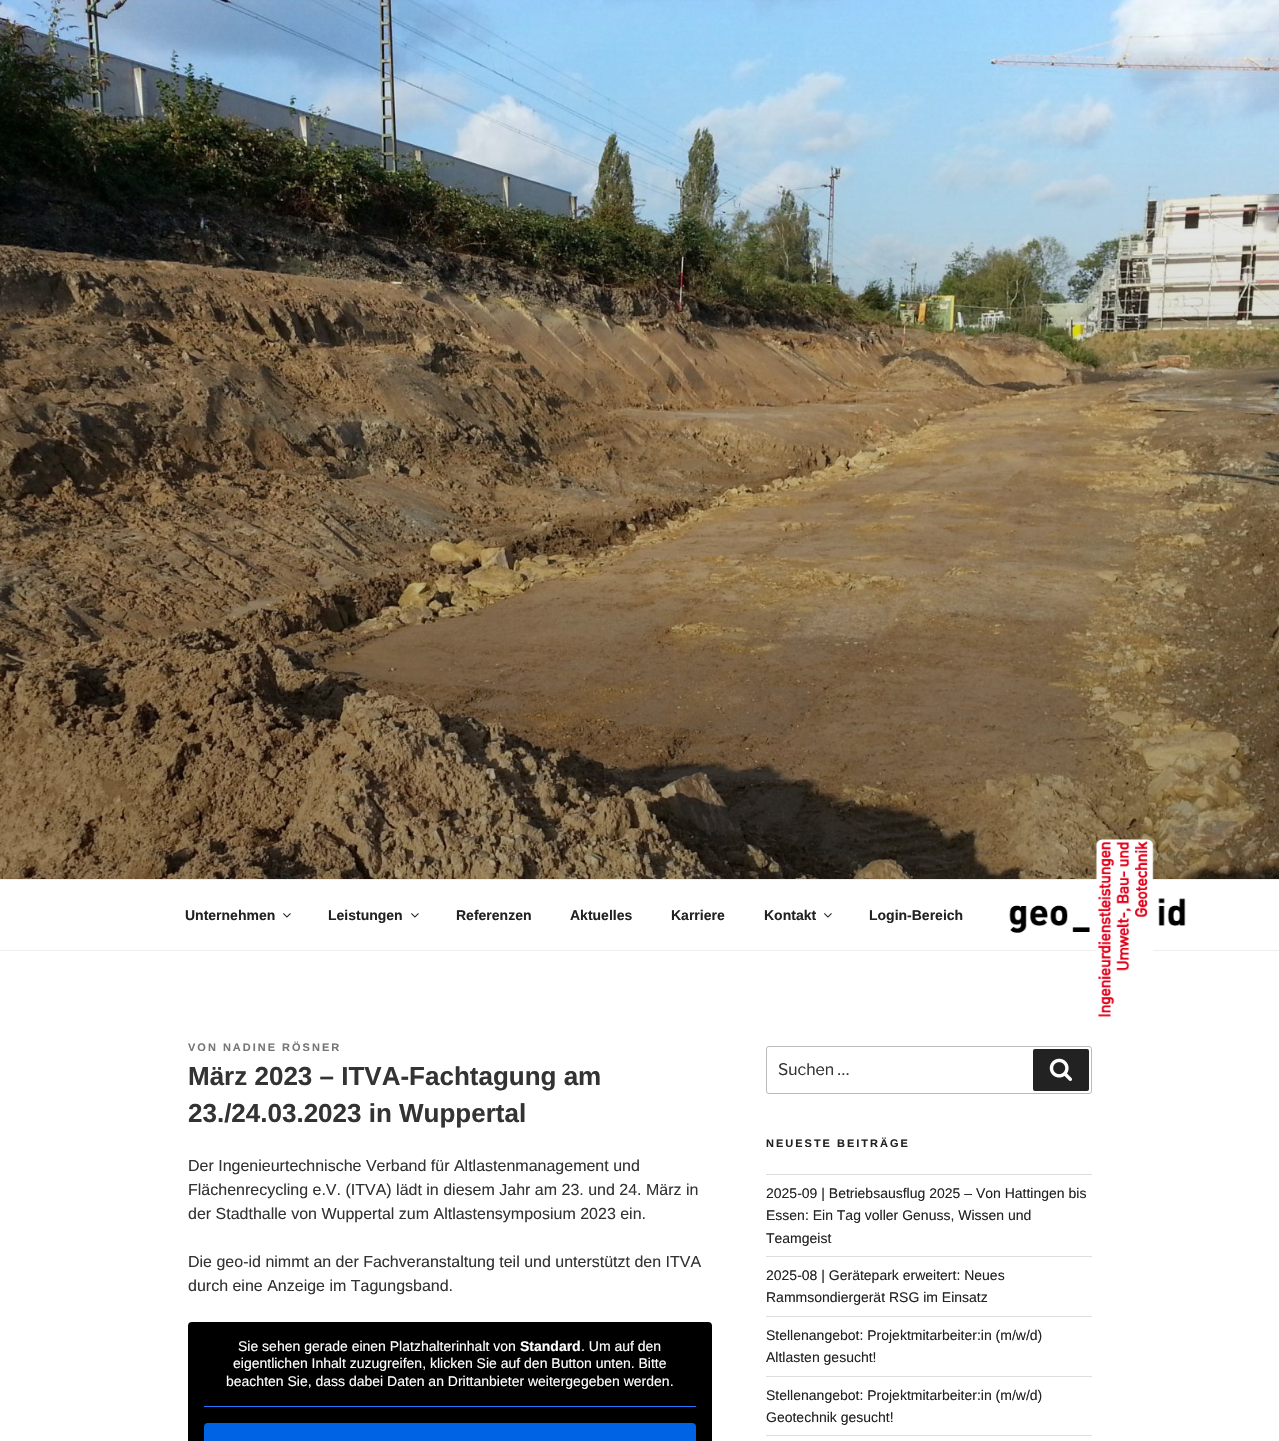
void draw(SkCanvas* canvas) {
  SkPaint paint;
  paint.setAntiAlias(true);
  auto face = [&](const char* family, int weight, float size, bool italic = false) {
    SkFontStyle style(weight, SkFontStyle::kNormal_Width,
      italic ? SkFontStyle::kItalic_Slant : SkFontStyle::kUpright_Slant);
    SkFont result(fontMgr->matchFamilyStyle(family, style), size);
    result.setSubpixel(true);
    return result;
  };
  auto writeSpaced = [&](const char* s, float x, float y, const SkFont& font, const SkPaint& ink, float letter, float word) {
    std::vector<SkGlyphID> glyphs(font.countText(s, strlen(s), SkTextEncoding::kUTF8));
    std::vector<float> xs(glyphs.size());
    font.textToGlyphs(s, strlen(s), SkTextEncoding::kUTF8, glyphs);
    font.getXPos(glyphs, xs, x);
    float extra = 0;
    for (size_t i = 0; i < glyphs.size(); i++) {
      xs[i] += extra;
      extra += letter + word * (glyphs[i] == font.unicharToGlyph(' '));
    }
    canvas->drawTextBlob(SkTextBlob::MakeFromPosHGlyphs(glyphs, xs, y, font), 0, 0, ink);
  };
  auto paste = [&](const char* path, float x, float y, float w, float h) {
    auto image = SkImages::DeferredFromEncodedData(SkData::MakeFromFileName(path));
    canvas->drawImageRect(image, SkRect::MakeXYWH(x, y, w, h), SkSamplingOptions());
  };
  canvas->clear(0xffffffff);
  paste("img/1.png", 0, 0, 1279, 879);
  paint.setColor(0xffeeeeee);
  canvas->drawRect(SkRect::MakeXYWH(0, 879, 1279, 1), paint);
  canvas->drawRect(SkRect::MakeXYWH(0, 950, 1279, 1), paint);
  paste("img/2.png", 283, 913, 8, 5);
  paste("img/2.png", 411, 913, 8, 5);
  paste("img/2.png", 824, 913, 8, 5);
  paste("img/3.png", 1009, 839, 177, 178);
  paint.setColor(0xff000000);
  canvas->drawRoundRect(SkRect::MakeXYWH(188, 1322, 524, 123), 4, 4, paint);
  paint.setColor(0xff2277ff);
  canvas->drawRect(SkRect::MakeXYWH(204, 1406, 492, 1), paint);
  paint.setColor(0xff0063e3);
  canvas->drawRoundRect(SkRect::MakeXYWH(204, 1423, 492, 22), 4, 4, paint);
  paint.setStroke(true);
  paint.setStrokeWidth(1);
  paint.setColor(0xffbbbbbb);
  canvas->drawRoundRect(SkRect::MakeXYWH(766.5f, 1046.5f, 325, 47), 2.5f, 2.5f, paint);
  paint.setStroke(false);
  paint.setColor(0xff222222);
  canvas->drawRoundRect(SkRect::MakeXYWH(1033, 1049, 56, 42), 2, 2, paint);
  paste("img/4.png", 1049, 1058, 23, 23);
  {
    const struct { float x, y, w, h; SkColor color; } items[] = {
      {766, 1174, 326, 1, 0xffdddddd},
      {766, 1256, 326, 1, 0xffdddddd},
      {766, 1316, 326, 1, 0xffdddddd},
      {766, 1376, 326, 1, 0xffdddddd},
      {766, 1435, 326, 1, 0xffdddddd},
    };
    for (auto [x, y, w, h, color] : items) {
      paint.setColor(color);
      canvas->drawRect(SkRect::MakeXYWH(x, y, w, h), paint);
    }
  }
  auto f0 = face("Liberation Sans", 700, 14);
  paint.setColor(0xff222222);
  {
    const struct { const char* s; float x, y; } items[] = {
      {"Unternehmen", 185, 920},
      {"Leistungen", 328, 920},
      {"Referenzen", 456, 920},
      {"Aktuelles", 570, 920},
      {"Karriere", 671, 920},
      {"Kontakt", 764, 920},
      {"Login-Bereich", 869, 920},
    };
    for (auto [s, x, y] : items) {
      canvas->drawString(s, x, y, f0, paint);
    }
  }
  auto f1 = face("Liberation Sans", 700, 11);
  paint.setColor(0xff767676);
  writeSpaced("VON NADINE RÖSNER", 188, 1051, f1, paint, 2, 0);
  auto f2 = face("Liberation Sans", 700, 26);
  paint.setColor(0xff333333);
  canvas->drawString("März 2023 – ITVA-Fachtagung am", 188, 1085, f2, paint);
  canvas->drawString("23./24.03.2023 in Wuppertal", 188, 1122, f2, paint);
  auto f3 = face("Liberation Sans", 400, 16);
  {
    const struct { const char* s; float x, y; } items[] = {
      {"Der Ingenieurtechnische Verband für Altlastenmanagement und", 188, 1171},
      {"Flächenrecycling e.V. (ITVA) lädt in diesem Jahr am 23. und 24. März in", 188, 1195},
      {"der Stadthalle von Wuppertal zum Altlastensymposium 2023 ein.", 188, 1219},
      {"Die geo-id nimmt an der Fachveranstaltung teil und unterstützt den ITVA", 188, 1267},
      {"durch eine Anzeige im Tagungsband.", 188, 1291},
    };
    for (auto [s, x, y] : items) {
      canvas->drawString(s, x, y, f3, paint);
    }
  }
  auto f4 = face("Liberation Sans", 400, 14);
  paint.setColor(0xffffffff);
  canvas->drawString("Sie sehen gerade einen Platzhalterinhalt von", 238, 1351, f4, paint);
  canvas->drawString("Standard", 520, 1351, f0, paint);
  {
    const struct { const char* s; float x, y; } items[] = {
      {". Um auf den", 581, 1351},
      {"eigentlichen Inhalt zuzugreifen, klicken Sie auf den Button unten. Bitte", 233, 1368},
      {"beachten Sie, dass dabei Daten an Drittanbieter weitergegeben werden.", 226, 1386},
    };
    for (auto [s, x, y] : items) {
      canvas->drawString(s, x, y, f4, paint);
    }
  }
  auto f5 = face("Libre Franklin", 100, 16);
  paint.setColor(0xff333333);
  canvas->drawString("Suchen …", 778, 1075, f5, paint);
  paint.setColor(0xff222222);
  writeSpaced("NEUESTE BEITRÄGE", 766, 1147, f1, paint, 2, 0);
  {
    const struct { const char* s; float x, y; } items[] = {
      {"2025-09 | Betriebsausflug 2025 – Von Hattingen bis", 766, 1198},
      {"Essen: Ein Tag voller Genuss, Wissen und", 766, 1220},
      {"Teamgeist", 766, 1243},
      {"2025-08 | Gerätepark erweitert: Neues", 766, 1280},
      {"Rammsondiergerät RSG im Einsatz", 766, 1302},
      {"Stellenangebot: Projektmitarbeiter:in (m/w/d)", 766, 1340},
      {"Altlasten gesucht!", 766, 1362},
      {"Stellenangebot: Projektmitarbeiter:in (m/w/d)", 766, 1400},
      {"Geotechnik gesucht!", 766, 1422},
    };
    for (auto [s, x, y] : items) {
      canvas->drawString(s, x, y, f4, paint);
    }
  }
}
